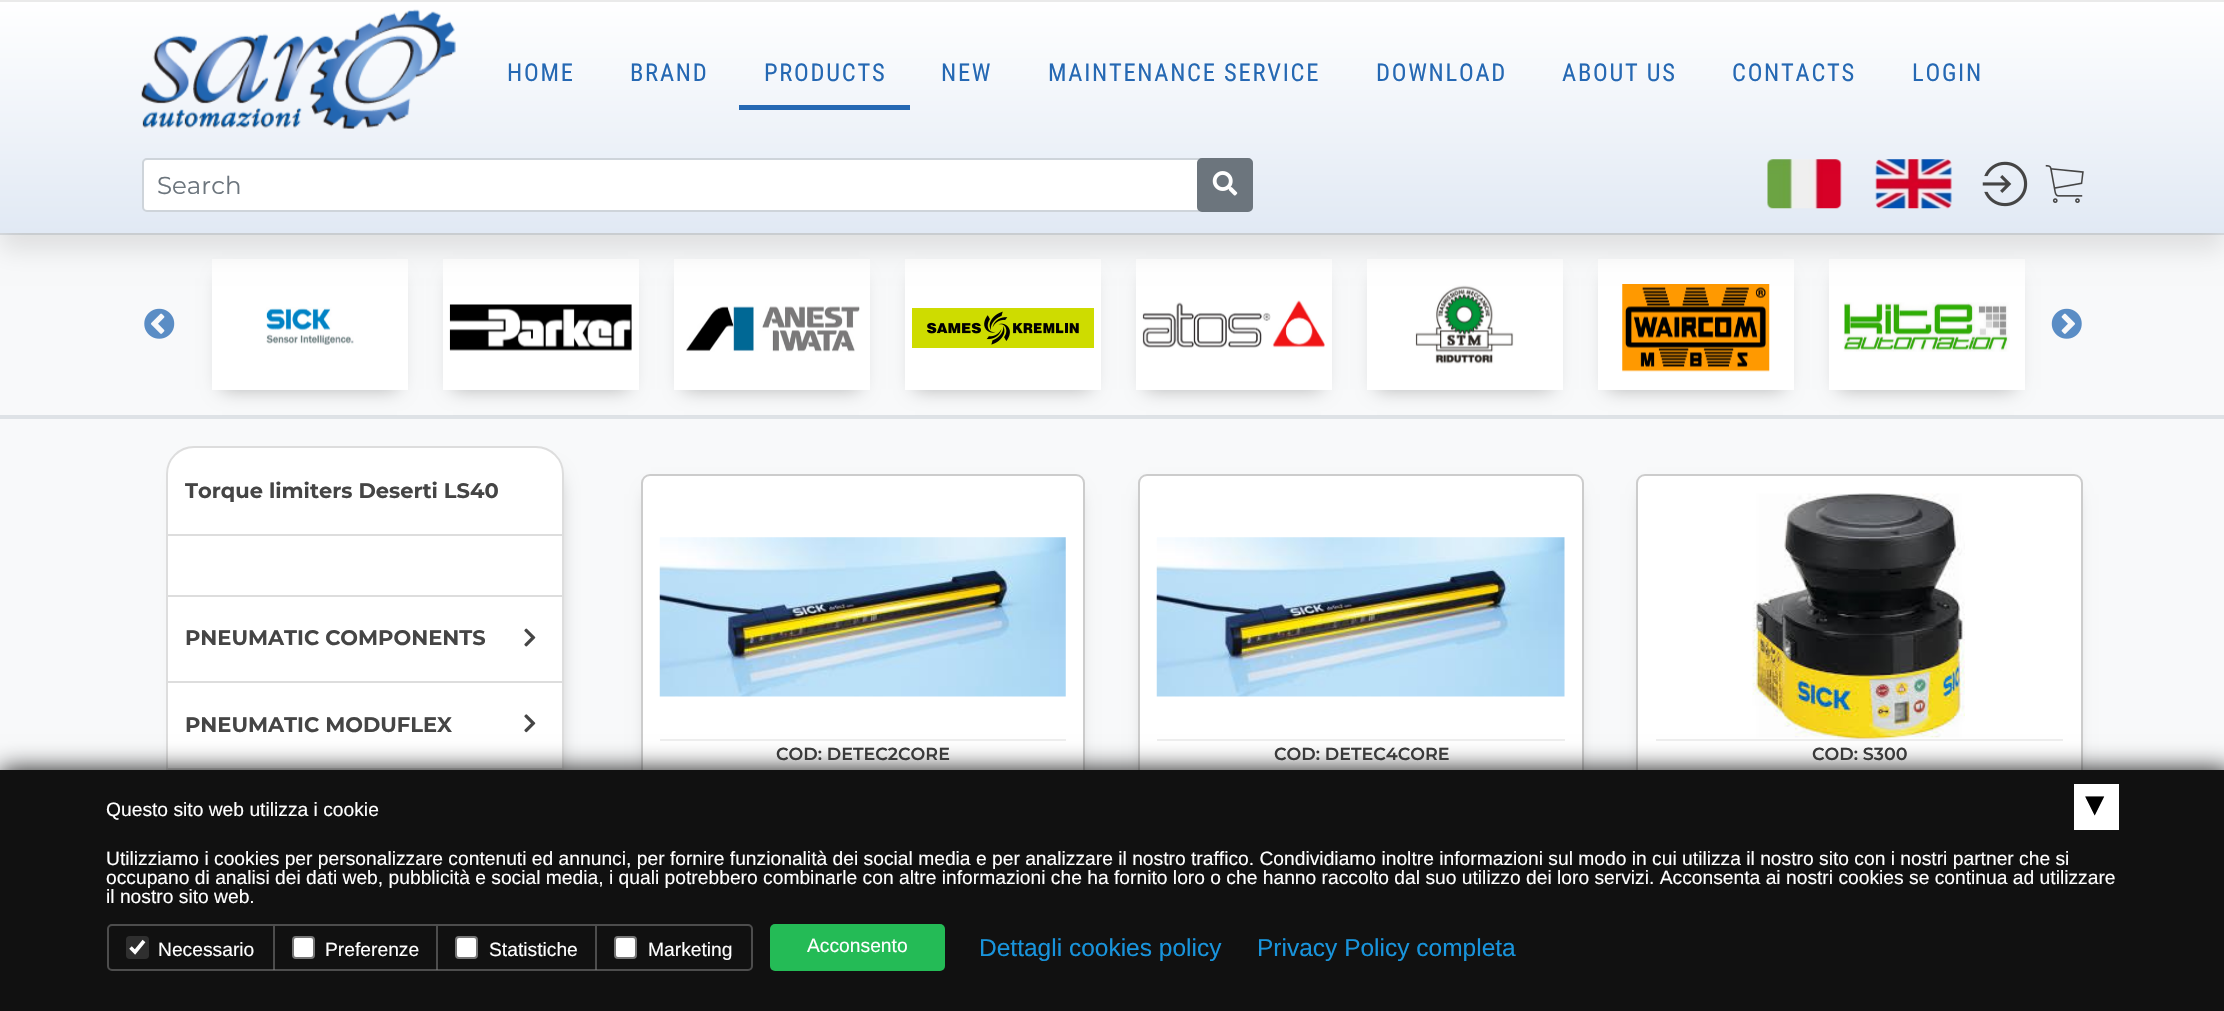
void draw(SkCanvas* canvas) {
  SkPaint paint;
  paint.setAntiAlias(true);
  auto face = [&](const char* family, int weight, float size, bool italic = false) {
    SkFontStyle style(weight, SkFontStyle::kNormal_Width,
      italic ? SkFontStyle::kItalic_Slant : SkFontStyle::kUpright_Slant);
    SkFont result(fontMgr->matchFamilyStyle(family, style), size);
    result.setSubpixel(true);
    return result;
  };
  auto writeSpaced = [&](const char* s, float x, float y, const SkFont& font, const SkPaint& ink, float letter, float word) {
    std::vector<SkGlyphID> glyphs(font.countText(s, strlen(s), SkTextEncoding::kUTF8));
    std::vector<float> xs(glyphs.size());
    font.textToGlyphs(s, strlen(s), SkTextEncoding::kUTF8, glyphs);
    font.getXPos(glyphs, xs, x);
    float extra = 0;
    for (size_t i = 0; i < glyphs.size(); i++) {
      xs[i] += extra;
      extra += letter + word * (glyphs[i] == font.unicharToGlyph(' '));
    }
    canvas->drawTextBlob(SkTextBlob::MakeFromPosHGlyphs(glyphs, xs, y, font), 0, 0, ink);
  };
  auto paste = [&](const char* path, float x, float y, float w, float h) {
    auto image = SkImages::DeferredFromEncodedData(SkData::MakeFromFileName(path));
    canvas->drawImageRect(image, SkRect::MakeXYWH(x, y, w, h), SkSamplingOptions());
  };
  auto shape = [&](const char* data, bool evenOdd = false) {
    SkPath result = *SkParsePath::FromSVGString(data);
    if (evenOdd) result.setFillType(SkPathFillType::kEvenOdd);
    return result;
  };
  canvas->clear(0xfff8f9fa);
  paint.setColor(0xffdee2e6);
  canvas->drawRect(SkRect::MakeXYWH(0, 233, 2224, 2), paint);
  canvas->drawRect(SkRect::MakeXYWH(0, 415, 2224, 4), paint);
  paint.setColor(0x4d000000);
  paint.setMaskFilter(SkMaskFilter::MakeBlur(kNormal_SkBlurStyle, 9));
  canvas->drawRect(SkRect::MakeXYWH(222, 278, 175, 111), paint);
  paint.setMaskFilter(nullptr);
  paint.setColor(0xffffffff);
  canvas->drawRect(SkRect::MakeXYWH(212, 259, 196, 131), paint);
  paint.setColor(0x4d000000);
  paint.setMaskFilter(SkMaskFilter::MakeBlur(kNormal_SkBlurStyle, 9));
  canvas->drawRect(SkRect::MakeXYWH(453, 278, 175, 111), paint);
  paint.setMaskFilter(nullptr);
  paint.setColor(0xffffffff);
  canvas->drawRect(SkRect::MakeXYWH(443, 259, 196, 131), paint);
  paint.setColor(0x4d000000);
  paint.setMaskFilter(SkMaskFilter::MakeBlur(kNormal_SkBlurStyle, 9));
  canvas->drawRect(SkRect::MakeXYWH(684, 278, 175, 111), paint);
  paint.setMaskFilter(nullptr);
  paint.setColor(0xffffffff);
  canvas->drawRect(SkRect::MakeXYWH(674, 259, 196, 131), paint);
  paint.setColor(0x4d000000);
  paint.setMaskFilter(SkMaskFilter::MakeBlur(kNormal_SkBlurStyle, 9));
  canvas->drawRect(SkRect::MakeXYWH(915, 278, 175, 111), paint);
  paint.setMaskFilter(nullptr);
  paint.setColor(0xffffffff);
  canvas->drawRect(SkRect::MakeXYWH(905, 259, 196, 131), paint);
  paint.setColor(0x4d000000);
  paint.setMaskFilter(SkMaskFilter::MakeBlur(kNormal_SkBlurStyle, 9));
  canvas->drawRect(SkRect::MakeXYWH(1146, 278, 175, 111), paint);
  paint.setMaskFilter(nullptr);
  paint.setColor(0xffffffff);
  canvas->drawRect(SkRect::MakeXYWH(1136, 259, 196, 131), paint);
  paint.setColor(0x4d000000);
  paint.setMaskFilter(SkMaskFilter::MakeBlur(kNormal_SkBlurStyle, 9));
  canvas->drawRect(SkRect::MakeXYWH(1377, 278, 175, 111), paint);
  paint.setMaskFilter(nullptr);
  paint.setColor(0xffffffff);
  canvas->drawRect(SkRect::MakeXYWH(1367, 259, 196, 131), paint);
  paste("img/13.png", 1415, 285, 99, 79);
  paint.setColor(0x4d000000);
  paint.setMaskFilter(SkMaskFilter::MakeBlur(kNormal_SkBlurStyle, 9));
  canvas->drawRect(SkRect::MakeXYWH(1608, 278, 175, 111), paint);
  paint.setMaskFilter(nullptr);
  paint.setColor(0xffffffff);
  canvas->drawRect(SkRect::MakeXYWH(1598, 259, 196, 131), paint);
  paste("img/14.png", 1622, 284, 148, 88);
  paint.setColor(0x4d000000);
  paint.setMaskFilter(SkMaskFilter::MakeBlur(kNormal_SkBlurStyle, 9));
  canvas->drawRect(SkRect::MakeXYWH(1839, 278, 175, 111), paint);
  paint.setMaskFilter(nullptr);
  paint.setColor(0xffffffff);
  canvas->drawRect(SkRect::MakeXYWH(1829, 259, 196, 131), paint);
  paint.setColor(0x1a000000);
  paint.setMaskFilter(SkMaskFilter::MakeBlur(kNormal_SkBlurStyle, 12));
  canvas->drawRect(SkRect::MakeXYWH(0, 18, 2224, 232), paint);
  paint.setMaskFilter(nullptr);
  {
    const SkColor colors[] = {0xffffffff, 0xffe1e9f4};
    const float stops[] = {0, 1};
    const SkPoint ends[] = {{1112, 0}, {1112, 233}};
    paint.setShader(SkGradientShader::MakeLinear(ends, colors, stops, 2, SkTileMode::kClamp));
    paint.setAlpha(255);
  }
  canvas->drawRect(SkRect::MakeXYWH(0, 2, 2224, 231), paint);
  paste("img/1.png", 141, 9, 315, 120);
  paint.setShader(nullptr);
  paint.setColor(0xffeaeaea);
  canvas->drawRect(SkRect::MakeXYWH(0, 0, 2224, 2), paint);
  paint.setColor(0xff2568b3);
  canvas->drawRect(SkRect::MakeXYWH(739, 105, 171, 5), paint);
  paint.setColor(0xffffffff);
  canvas->drawRoundRect(SkRect::MakeXYWH(143, 159, 1109, 52), 4, 4, paint);
  paint.setStroke(true);
  paint.setStrokeWidth(2);
  paint.setColor(0xffced4da);
  canvas->drawRoundRect(SkRect::MakeXYWH(143, 159, 1109, 52), 4, 4, paint);
  paint.setStroke(false);
  paint.setColor(0xff6c757d);
  canvas->drawRoundRect(SkRect::MakeXYWH(1198, 159, 54, 52), 4, 4, paint);
  paint.setStroke(true);
  canvas->drawRoundRect(SkRect::MakeXYWH(1198, 159, 54, 52), 4, 4, paint);
  paste("img/2.png", 1212, 171, 26, 25);
  paste("img/3.png", 1767, 159, 75, 50);
  paste("img/4.png", 1875, 159, 77, 50);
  paste("img/5.png", 1982, 161, 46, 46);
  paste("img/6.png", 2045, 164, 39, 39);
  paste("img/7.png", 144, 308, 31, 31);
  paste("img/8.png", 266, 307, 88, 38);
  paste("img/9.png", 449, 304, 183, 47);
  paste("img/10.png", 686, 306, 174, 46);
  paste("img/11.png", 912, 308, 182, 40);
  paste("img/12.png", 1142, 300, 183, 48);
  paste("img/15.png", 1843, 302, 167, 50);
  paste("img/16.png", 2051, 308, 31, 31);
  paint.setStroke(false);
  paint.setColor(0x66000000);
  paint.setMaskFilter(SkMaskFilter::MakeBlur(kNormal_SkBlurStyle, 10.5f));
  canvas->drawRoundRect(SkRect::MakeXYWH(186, 474, 369, 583), 14, 14, paint);
  paint.setMaskFilter(nullptr);
  paint.setColor(0xffffffff);
  canvas->drawRoundRect(SkRect::MakeXYWH(167, 447, 396, 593), 27, 27, paint);
  paint.setStroke(true);
  paint.setColor(0xffdddddd);
  canvas->drawRoundRect(SkRect::MakeXYWH(167, 447, 396, 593), 27, 27, paint);
  paint.setStroke(false);
  {
    const struct { float x, y, w, h; SkColor color; } items[] = {
      {168, 534, 394, 2, 0xffdddddd},
      {168, 595, 394, 2, 0xffdddddd},
      {168, 681, 394, 2, 0xffdddddd},
    };
    for (auto [x, y, w, h, color] : items) {
      paint.setColor(color);
      canvas->drawRect(SkRect::MakeXYWH(x, y, w, h), paint);
    }
  }
  paste("img/17.png", 524, 628, 12, 19);
  canvas->drawRect(SkRect::MakeXYWH(168, 768, 394, 2), paint);
  paste("img/18.png", 524, 714, 12, 19);
  paint.setColor(0x4d000000);
  paint.setMaskFilter(SkMaskFilter::MakeBlur(kNormal_SkBlurStyle, 9));
  canvas->drawRect(SkRect::MakeXYWH(651, 494, 424, 493), paint);
  paint.setMaskFilter(nullptr);
  canvas->save();
  canvas->clipPath(shape("M650 474H1076C1081 474 1085 478 1085 483V980C1085 985 1081 989 1076 989H650C645 989 641 985 641 980V483C641 478 645 474 650 474Z"), true);
  {
    const SkColor colors[] = {0xffffffff, 0xfff3f3f3};
    const float stops[] = {0.7f, 1};
    const SkPoint ends[] = {{863, 476}, {863, 987}};
    paint.setShader(SkGradientShader::MakeLinear(ends, colors, stops, 2, SkTileMode::kClamp));
    paint.setAlpha(255);
  }
  canvas->drawRect(SkRect::MakeXYWH(641, 476, 444, 294), paint);
  canvas->restore();
  paint.setStroke(true);
  paint.setShader(nullptr);
  paint.setColor(0xffcccccc);
  canvas->drawRoundRect(SkRect::MakeXYWH(642, 475, 442, 513), 8, 8, paint);
  paste("img/19.png", 659, 537, 407, 160);
  paint.setStroke(false);
  paint.setColor(0xffeeeeee);
  canvas->drawRect(SkRect::MakeXYWH(660, 739, 406, 2), paint);
  paint.setColor(0x4d000000);
  paint.setMaskFilter(SkMaskFilter::MakeBlur(kNormal_SkBlurStyle, 9));
  canvas->drawRect(SkRect::MakeXYWH(1148, 494, 425, 493), paint);
  paint.setMaskFilter(nullptr);
  canvas->save();
  canvas->clipPath(shape("M1147 474H1575C1580 474 1584 478 1584 483V980C1584 985 1580 989 1575 989H1147C1142 989 1138 985 1138 980V483C1138 478 1142 474 1147 474Z"), true);
  {
    const SkColor colors[] = {0xffffffff, 0xfff3f3f3};
    const float stops[] = {0.7f, 1};
    const SkPoint ends[] = {{1361, 476}, {1361, 987}};
    paint.setShader(SkGradientShader::MakeLinear(ends, colors, stops, 2, SkTileMode::kClamp));
    paint.setAlpha(255);
  }
  canvas->drawRect(SkRect::MakeXYWH(1138, 476, 446, 294), paint);
  canvas->restore();
  paint.setStroke(true);
  paint.setShader(nullptr);
  paint.setColor(0xffcccccc);
  canvas->drawRoundRect(SkRect::MakeXYWH(1139, 475, 444, 513), 8, 8, paint);
  paste("img/20.png", 1156, 537, 409, 160);
  paint.setStroke(false);
  paint.setColor(0xffeeeeee);
  canvas->drawRect(SkRect::MakeXYWH(1157, 739, 408, 2), paint);
  paint.setColor(0x4d000000);
  paint.setMaskFilter(SkMaskFilter::MakeBlur(kNormal_SkBlurStyle, 9));
  canvas->drawRect(SkRect::MakeXYWH(1647, 494, 425, 493), paint);
  paint.setMaskFilter(nullptr);
  canvas->save();
  canvas->clipPath(shape("M1645 474H2074C2079 474 2083 478 2083 483V980C2083 985 2079 989 2074 989H1645C1640 989 1636 985 1636 980V483C1636 478 1640 474 1645 474Z"), true);
  {
    const SkColor colors[] = {0xffffffff, 0xfff3f3f3};
    const float stops[] = {0.7f, 1};
    const SkPoint ends[] = {{1859, 476}, {1859, 987}};
    paint.setShader(SkGradientShader::MakeLinear(ends, colors, stops, 2, SkTileMode::kClamp));
    paint.setAlpha(255);
  }
  canvas->drawRect(SkRect::MakeXYWH(1636, 476, 447, 294), paint);
  canvas->restore();
  paint.setStroke(true);
  paint.setShader(nullptr);
  paint.setColor(0xffcccccc);
  canvas->drawRoundRect(SkRect::MakeXYWH(1637, 475, 445, 513), 8, 8, paint);
  paste("img/21.png", 1752, 493, 213, 246);
  paint.setStroke(false);
  paint.setColor(0xffeeeeee);
  canvas->drawRect(SkRect::MakeXYWH(1656, 739, 407, 2), paint);
  paint.setColor(0xff121212);
  paint.setMaskFilter(SkMaskFilter::MakeBlur(kNormal_SkBlurStyle, 12));
  canvas->drawRect(SkRect::MakeXYWH(0, 770, 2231, 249), paint);
  paint.setMaskFilter(nullptr);
  paint.setColor(0xff111111);
  canvas->drawRect(SkRect::MakeXYWH(0, 770, 2224, 241), paint);
  paint.setColor(0xffffffff);
  canvas->drawRect(SkRect::MakeXYWH(2074, 784, 45, 46), paint);
  paint.setStroke(true);
  paint.setColor(0xff4d4d4d);
  canvas->drawRoundRect(SkRect::MakeXYWH(108, 925, 644, 45), 4, 4, paint);
  paint.setStroke(false);
  paint.setColor(0x87828282);
  canvas->drawRect(SkRect::MakeXYWH(273, 926, 2, 44), paint);
  paint.setColor(0xff2f2f2f);
  canvas->drawRoundRect(SkRect::MakeXYWH(126, 936, 23, 23), 4, 4, paint);
  paint.setStroke(true);
  paint.setStrokeWidth(3.6f);
  paint.setColor(0xffffffff);
  canvas->drawPath(shape("M130.5 947.5L135 952L144 941"), paint);
  paint.setStroke(false);
  paint.setColor(0x87828282);
  canvas->drawRect(SkRect::MakeXYWH(436, 926, 2, 44), paint);
  paint.setColor(0xffffffff);
  canvas->drawRoundRect(SkRect::MakeXYWH(293, 937, 21, 21), 3, 3, paint);
  paint.setStroke(true);
  paint.setStrokeWidth(2);
  paint.setColor(0xff767676);
  canvas->drawRoundRect(SkRect::MakeXYWH(293, 937, 21, 21), 3, 3, paint);
  paint.setStroke(false);
  paint.setColor(0x87828282);
  canvas->drawRect(SkRect::MakeXYWH(595, 926, 2, 44), paint);
  paint.setColor(0xffffffff);
  canvas->drawRoundRect(SkRect::MakeXYWH(456, 937, 21, 21), 3, 3, paint);
  paint.setStroke(true);
  paint.setColor(0xff767676);
  canvas->drawRoundRect(SkRect::MakeXYWH(456, 937, 21, 21), 3, 3, paint);
  paint.setStroke(false);
  paint.setColor(0xffffffff);
  canvas->drawRoundRect(SkRect::MakeXYWH(615, 937, 21, 21), 3, 3, paint);
  paint.setStroke(true);
  paint.setColor(0xff767676);
  canvas->drawRoundRect(SkRect::MakeXYWH(615, 937, 21, 21), 3, 3, paint);
  paint.setStroke(false);
  paint.setColor(0xff24bb56);
  canvas->drawRoundRect(SkRect::MakeXYWH(770, 924, 175, 47), 5, 5, paint);
  auto f0 = face("Roboto Condensed", 400, 24.5f);
  paint.setColor(0xff2568b3);
  {
    const struct { const char* s; float x, y; } items[] = {
      {"HOME", 507, 81},
      {"BRAND", 630, 81},
      {"PRODUCTS", 764, 81},
      {"NEW", 941, 81},
      {"MAINTENANCE SERVICE", 1048, 81},
      {"DOWNLOAD", 1376, 81},
      {"ABOUT US", 1562, 81},
      {"CONTACTS", 1732, 81},
      {"LOGIN", 1912, 81},
    };
    for (auto [s, x, y] : items) {
      writeSpaced(s, x, y, f0, paint, 1.75f, 0);
    }
  }
  auto f1 = face("Montserrat", 400, 24.5f);
  paint.setColor(0xff6c757d);
  canvas->drawString("Search", 157, 194, f1, paint);
  auto f2 = face("Montserrat", 700, 21);
  paint.setColor(0xff454545);
  {
    const struct { const char* s; float x, y; } items[] = {
      {"Torque limiters Deserti LS40", 185, 498},
      {"PNEUMATIC COMPONENTS", 185, 645},
      {"PNEUMATIC MODUFLEX", 185, 732},
    };
    for (auto [s, x, y] : items) {
      canvas->drawString(s, x, y, f2, paint);
    }
  }
  auto f3 = face("Montserrat", 600, 17.5f);
  paint.setColor(0xff3a3a3a);
  {
    const struct { const char* s; float x, y; } items[] = {
      {"COD: DETEC2CORE", 776, 760},
      {"COD: DETEC4CORE", 1274, 760},
      {"COD: S300", 1812, 760},
    };
    for (auto [s, x, y] : items) {
      canvas->drawString(s, x, y, f3, paint);
    }
  }
  auto f4 = face("Liberation Sans", 400, 19.25f);
  paint.setColor(0xffffffff);
  canvas->drawString("Questo sito web utilizza i cookie", 106, 816, f4, paint);
  auto f5 = face("DejaVu Sans", 700, 35);
  paint.setColor(0xff000000);
  canvas->save();
  canvas->rotate(180, 2104, 796);
  canvas->drawString("▴", 2104, 796, f5, paint);
  canvas->restore();
  paint.setColor(0xffffffff);
  {
    const struct { const char* s; float x, y; } items[] = {
      {"Utilizziamo i cookies per personalizzare contenuti ed annunci, per fornire funzionalità dei social media e per analizzare il nostro traffico. Condividiamo inoltre informazioni sul modo in cui utilizza il nostro sito con i nostri partner che si", 106, 865},
      {"occupano di analisi dei dati web, pubblicità e social media, i quali potrebbero combinarle con altre informazioni che ha fornito loro o che hanno raccolto dal suo utilizzo dei loro servizi. Acconsenta ai nostri cookies se continua ad utilizzare", 106, 884},
      {"il nostro sito web.", 106, 903},
      {"Necessario", 158, 956},
      {"Preferenze", 325, 956},
      {"Statistiche", 489, 956},
      {"Marketing", 648, 956},
      {"Acconsento", 807, 952},
    };
    for (auto [s, x, y] : items) {
      canvas->drawString(s, x, y, f4, paint);
    }
  }
  auto f6 = face("Liberation Sans", 400, 24.5f);
  paint.setColor(0xff1894dc);
  canvas->drawString("Dettagli cookies policy", 979, 956, f6, paint);
  canvas->drawString("Privacy Policy completa", 1257, 956, f6, paint);
}
